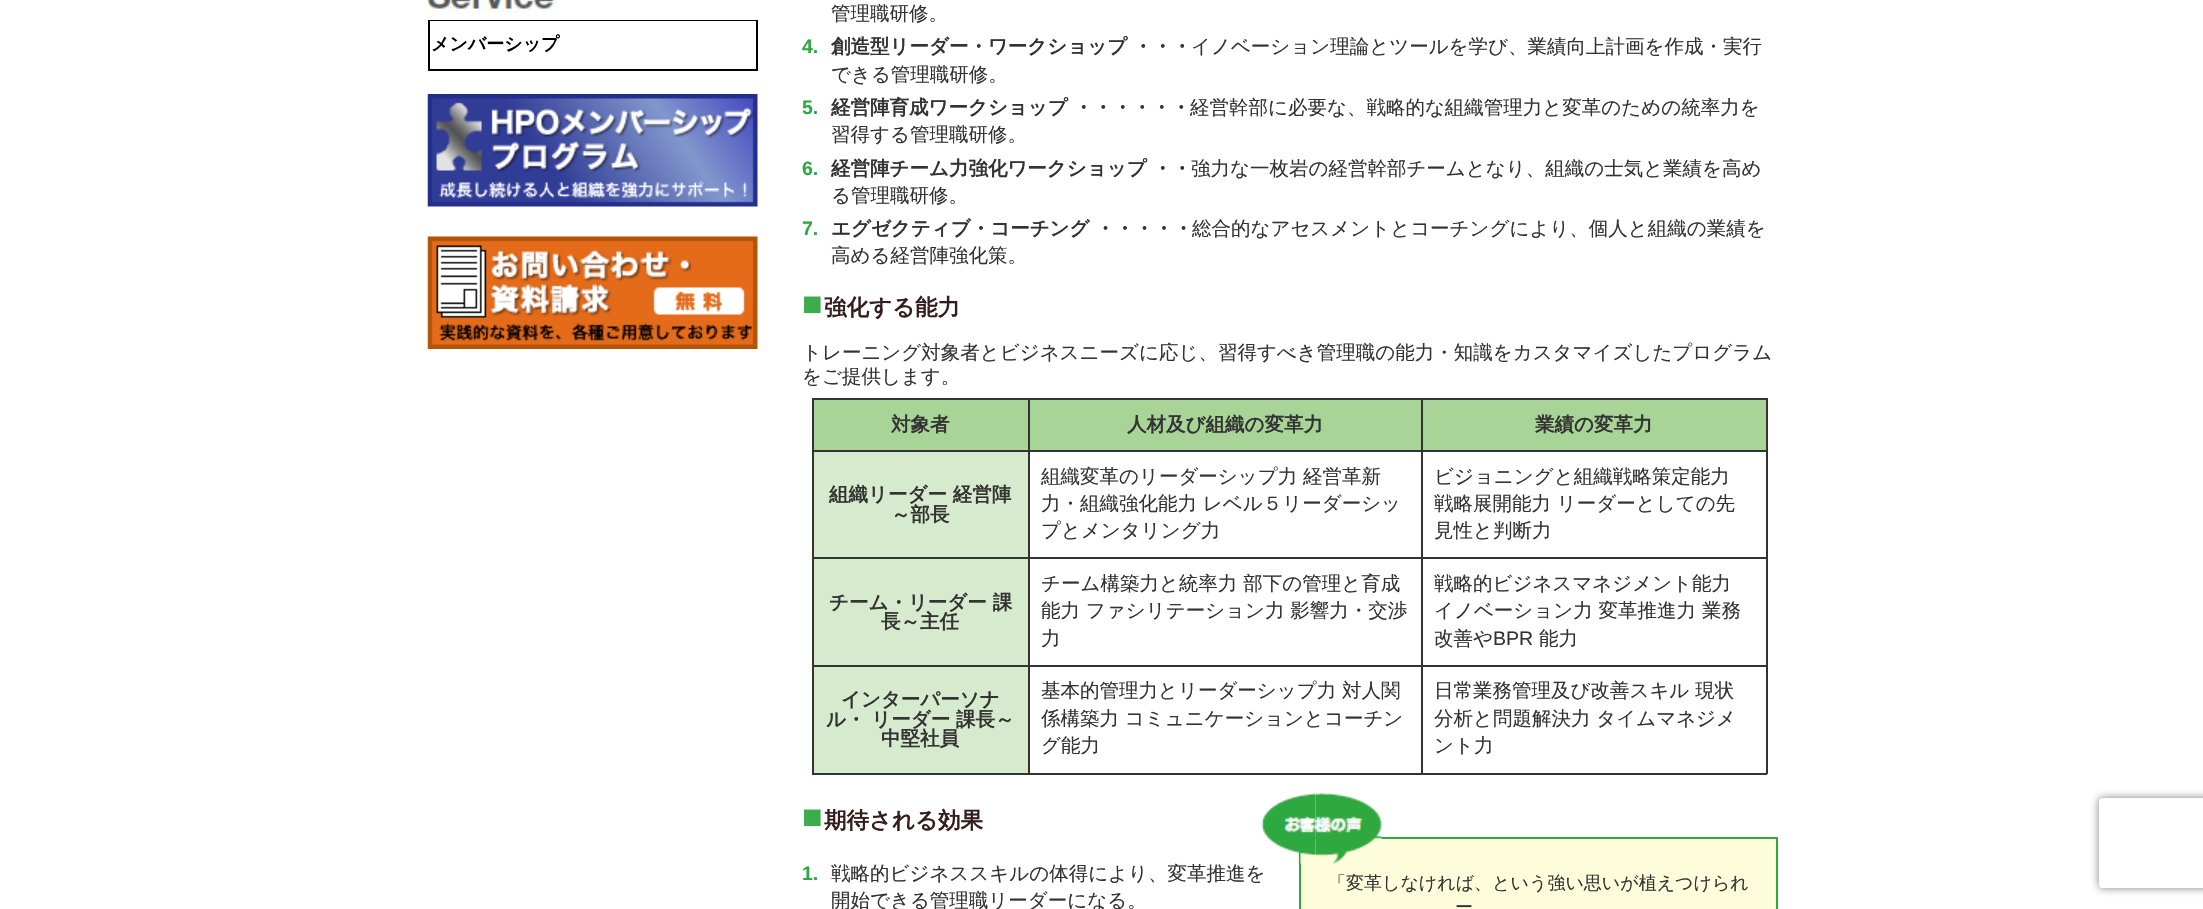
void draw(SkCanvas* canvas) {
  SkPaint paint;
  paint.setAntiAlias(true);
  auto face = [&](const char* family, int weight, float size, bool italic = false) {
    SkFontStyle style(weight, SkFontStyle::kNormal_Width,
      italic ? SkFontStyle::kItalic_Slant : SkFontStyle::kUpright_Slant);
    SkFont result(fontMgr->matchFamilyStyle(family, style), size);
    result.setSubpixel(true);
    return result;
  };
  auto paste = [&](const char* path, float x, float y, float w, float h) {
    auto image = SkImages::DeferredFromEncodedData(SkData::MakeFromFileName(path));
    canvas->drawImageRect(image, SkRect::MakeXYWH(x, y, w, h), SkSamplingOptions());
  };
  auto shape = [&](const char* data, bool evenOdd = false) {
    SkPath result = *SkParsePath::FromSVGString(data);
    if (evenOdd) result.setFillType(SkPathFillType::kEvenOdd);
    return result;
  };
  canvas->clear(0xffffffff);
  paste("img/1.png", 427, 0, 130, 13);
  {
    const struct { float x, y, w, h; SkColor color; } items[] = {
      {428, 20, 330, 1, 0xff000000},
      {756, 21, 2, 50, 0xff000000},
      {428, 69, 330, 2, 0xff000000},
      {428, 21, 2, 50, 0xff000000},
    };
    for (auto [x, y, w, h, color] : items) {
      paint.setColor(color);
      canvas->drawRect(SkRect::MakeXYWH(x, y, w, h), paint);
    }
  }
  paste("img/2.png", 427, 94, 331, 113);
  paste("img/3.png", 427, 236, 331, 113);
  {
    const struct { float x, y, w, h; SkColor color; } items[] = {
      {814, 400, 214, 50, 0xffa8d497},
      {1421, 398, 346, 2, 0xff333333},
      {1421, 450, 346, 2, 0xff333333},
      {1421, 557, 346, 2, 0xff333333},
      {1421, 665, 346, 2, 0xff333333},
      {1766, 665, 2, 109, 0xff333333},
      {1421, 773, 346, 2, 0xff333333},
      {1421, 665, 2, 109, 0xff333333},
      {1028, 665, 394, 2, 0xff333333},
      {1421, 557, 2, 109, 0xff333333},
      {1028, 557, 394, 2, 0xff333333},
      {1421, 450, 2, 108, 0xff333333},
      {1028, 450, 394, 2, 0xff333333},
      {1421, 398, 2, 54, 0xff333333},
      {1028, 398, 394, 2, 0xff333333},
      {1028, 773, 394, 2, 0xff333333},
      {1028, 665, 2, 109, 0xff333333},
      {812, 665, 217, 2, 0xff333333},
      {1028, 557, 2, 109, 0xff333333},
      {812, 557, 217, 2, 0xff333333},
      {1028, 450, 2, 108, 0xff333333},
      {812, 450, 217, 2, 0xff333333},
      {1028, 398, 2, 54, 0xff333333},
      {812, 398, 217, 2, 0xff333333},
      {812, 773, 217, 2, 0xff333333},
      {812, 665, 2, 109, 0xff333333},
      {812, 557, 2, 109, 0xff333333},
      {812, 450, 2, 108, 0xff333333},
      {812, 398, 2, 54, 0xff333333},
      {1030, 400, 391, 50, 0xffa8d497},
      {1423, 400, 343, 50, 0xffa8d497},
      {1766, 557, 2, 109, 0xff333333},
      {1766, 450, 2, 108, 0xff333333},
      {1766, 398, 2, 54, 0xff333333},
      {814, 452, 214, 105, 0xffd6eacd},
      {814, 559, 214, 106, 0xffd6eacd},
      {814, 667, 214, 106, 0xffd6eacd},
    };
    for (auto [x, y, w, h, color] : items) {
      paint.setColor(color);
      canvas->drawRect(SkRect::MakeXYWH(x, y, w, h), paint);
    }
  }
  paint.setColor(0xfffefddb);
  canvas->drawRect(SkRect::MakeXYWH(1300, 838, 477, 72), paint);
  paint.setStroke(true);
  paint.setStrokeWidth(2);
  paint.setColor(0xff2ea840);
  canvas->drawRect(SkRect::MakeXYWH(1300, 838, 477, 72), paint);
  canvas->save();
  canvas->clipPath(shape("M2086 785H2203V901H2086ZM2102 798H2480C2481.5 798 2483 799.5 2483 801V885C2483 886.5 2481.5 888 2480 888H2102C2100.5 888 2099 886.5 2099 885V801C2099 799.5 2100.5 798 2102 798Z", true), true);
  paint.setStroke(false);
  paint.setColor(0xff808080);
  paint.setMaskFilter(SkMaskFilter::MakeBlur(kNormal_SkBlurStyle, 4));
  canvas->drawRoundRect(SkRect::MakeXYWH(2099, 798, 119, 90), 3, 3, paint);
  paint.setMaskFilter(nullptr);
  canvas->restore();
  auto f0 = face("WenQuanYi Zen Hei", 700, 18);
  paint.setColor(0xff000000);
  canvas->drawString("メンバーシップ", 431, 50, f0, paint);
  auto f1 = face("WenQuanYi Zen Hei", 500, 19.5f);
  paint.setColor(0xff333333);
  canvas->drawString("管理職研修。", 831, 20, f1, paint);
  auto f2 = face("Liberation Sans", 700, 19.5f);
  paint.setColor(0xff2ea840);
  canvas->drawString("4.", 802, 53, f2, paint);
  auto f3 = face("WenQuanYi Zen Hei", 700, 19.5f);
  paint.setColor(0xff333333);
  canvas->drawString("創造型リーダー・ワークショップ ・・・", 831, 53, f3, paint);
  canvas->drawString("イノベーション理論とツールを学び、業績向上計画を作成・実行", 1191, 53, f1, paint);
  canvas->drawString("できる管理職研修。", 831, 81, f1, paint);
  paint.setColor(0xff2ea840);
  canvas->drawString("5.", 802, 114, f2, paint);
  paint.setColor(0xff333333);
  canvas->drawString("経営陣育成ワークショップ ・・・・・・", 831, 114, f3, paint);
  canvas->drawString("経営幹部に必要な、戦略的な組織管理力と変革のための統率力を", 1190, 114, f1, paint);
  canvas->drawString("習得する管理職研修。", 831, 141, f1, paint);
  paint.setColor(0xff2ea840);
  canvas->drawString("6.", 802, 175, f2, paint);
  paint.setColor(0xff333333);
  canvas->drawString("経営陣チーム力強化ワークショップ ・・", 831, 175, f3, paint);
  canvas->drawString("強力な一枚岩の経営幹部チームとなり、組織の士気と業績を高め", 1191, 175, f1, paint);
  canvas->drawString("る管理職研修。", 831, 202, f1, paint);
  paint.setColor(0xff2ea840);
  canvas->drawString("7.", 802, 235, f2, paint);
  paint.setColor(0xff333333);
  canvas->drawString("エグゼクティブ・コーチング ・・・・・", 831, 235, f3, paint);
  canvas->drawString("総合的なアセスメントとコーチングにより、個人と組織の業績を", 1192, 235, f1, paint);
  canvas->drawString("高める経営陣強化策。", 831, 262, f1, paint);
  auto f4 = face("Liberation Sans", 700, 34);
  paint.setColor(0xff3cad4c);
  canvas->drawString("■", 802, 315, f4, paint);
  auto f5 = face("WenQuanYi Zen Hei", 700, 22.5f);
  paint.setColor(0xff341e1d);
  canvas->drawString("強化する能力", 824, 315, f5, paint);
  paint.setColor(0xff333333);
  canvas->drawString("トレーニング対象者とビジネスニーズに応じ、習得すべき管理職の能力・知識をカスタマイズしたプログラム", 802, 359, f1, paint);
  canvas->drawString("をご提供します。", 802, 383, f1, paint);
  {
    const struct { const char* s; float x, y; } items[] = {
      {"対象者", 891, 431},
      {"人材及び組織の変革力", 1127, 431},
      {"業績の変革力", 1535, 431},
      {"組織リーダー 経営陣", 829, 501},
      {"～部長", 891, 521},
    };
    for (auto [s, x, y] : items) {
      canvas->drawString(s, x, y, f3, paint);
    }
  }
  {
    const struct { const char* s; float x, y; } items[] = {
      {"組織変革のリーダーシップ力 経営革新", 1041, 483},
      {"力・組織強化能力 レベル５リーダーシッ", 1041, 510},
      {"プとメンタリング力", 1041, 537},
      {"ビジョニングと組織戦略策定能力", 1434, 483},
      {"戦略展開能力 リーダーとしての先", 1434, 510},
      {"見性と判断力", 1434, 537},
    };
    for (auto [s, x, y] : items) {
      canvas->drawString(s, x, y, f1, paint);
    }
  }
  canvas->drawString("チーム・リーダー 課", 829, 609, f3, paint);
  canvas->drawString("長～主任", 881, 628, f3, paint);
  {
    const struct { const char* s; float x, y; } items[] = {
      {"チーム構築力と統率力 部下の管理と育成", 1041, 590},
      {"能力 ファシリテーション力 影響力・交渉", 1041, 617},
      {"力", 1041, 645},
      {"戦略的ビジネスマネジメント能力", 1434, 590},
      {"イノベーション力 変革推進力 業務", 1434, 617},
      {"改善や", 1434, 645},
    };
    for (auto [s, x, y] : items) {
      canvas->drawString(s, x, y, f1, paint);
    }
  }
  auto f6 = face("Liberation Sans", 400, 19.5f);
  canvas->drawString("BPR", 1493, 645, f6, paint);
  canvas->drawString("能力", 1539, 645, f1, paint);
  {
    const struct { const char* s; float x, y; } items[] = {
      {"インターパーソナ", 841, 706},
      {"ル・ リーダー 課長～", 826, 726},
      {"中堅社員", 881, 745},
    };
    for (auto [s, x, y] : items) {
      canvas->drawString(s, x, y, f3, paint);
    }
  }
  {
    const struct { const char* s; float x, y; } items[] = {
      {"基本的管理力とリーダーシップ力 対人関", 1041, 697},
      {"係構築力 コミュニケーションとコーチン", 1041, 725},
      {"グ能力", 1041, 752},
      {"日常業務管理及び改善スキル 現状", 1434, 697},
      {"分析と問題解決力 タイムマネジメ", 1434, 725},
      {"ント力", 1434, 752},
    };
    for (auto [s, x, y] : items) {
      canvas->drawString(s, x, y, f1, paint);
    }
  }
  paint.setColor(0xff3cad4c);
  canvas->drawString("■", 802, 828, f4, paint);
  paint.setColor(0xff341e1d);
  canvas->drawString("期待される効果", 824, 828, f5, paint);
  paint.setColor(0xff2ea840);
  canvas->drawString("1.", 802, 880, f2, paint);
  paint.setColor(0xff333333);
  canvas->drawString("戦略的ビジネススキルの体得により、変革推進を", 831, 880, f1, paint);
  canvas->drawString("開始できる管理職リーダーになる。", 831, 907, f1, paint);
  paste("img/4.png", 1261, 793, 55, 71);
  paste("img/5.png", 1315, 793, 67, 71);
  auto f7 = face("WenQuanYi Zen Hei", 500, 18);
  canvas->drawString("「変革しなければ、という強い思いが植えつけられ", 1328, 889, f7, paint);
  canvas->drawString("ー", 1455, 913, f7, paint);
}
